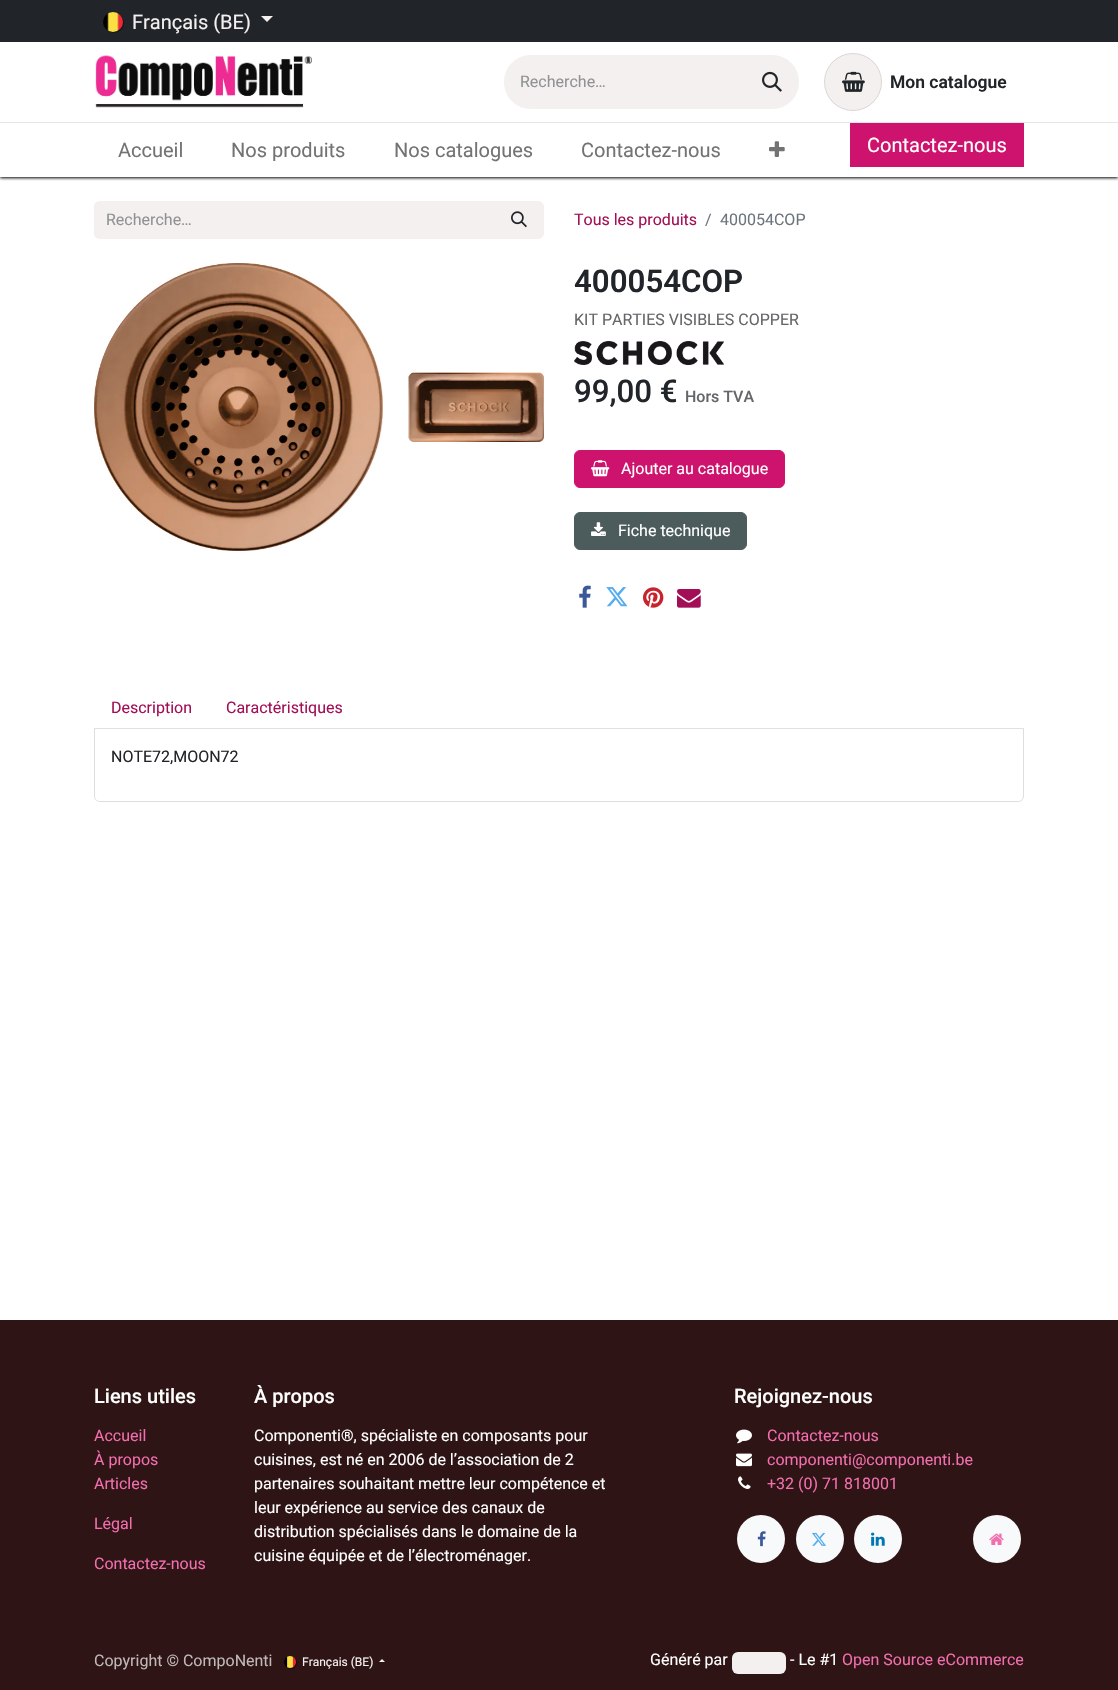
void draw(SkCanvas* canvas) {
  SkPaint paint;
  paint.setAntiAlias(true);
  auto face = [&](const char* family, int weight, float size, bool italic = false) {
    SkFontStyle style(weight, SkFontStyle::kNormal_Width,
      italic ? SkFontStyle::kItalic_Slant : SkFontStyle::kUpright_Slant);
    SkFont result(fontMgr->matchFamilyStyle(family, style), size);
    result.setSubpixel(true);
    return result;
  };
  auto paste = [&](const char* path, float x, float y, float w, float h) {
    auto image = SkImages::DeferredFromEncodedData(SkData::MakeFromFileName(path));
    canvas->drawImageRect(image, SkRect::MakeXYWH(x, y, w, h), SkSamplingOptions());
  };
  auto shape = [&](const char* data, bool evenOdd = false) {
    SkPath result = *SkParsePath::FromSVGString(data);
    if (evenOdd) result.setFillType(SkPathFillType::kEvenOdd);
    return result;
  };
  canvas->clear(0xffffffff);
  canvas->save();
  canvas->clipRect(SkRect::MakeXYWH(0, 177, 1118, 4));
  paint.setColor(0xff000000);
  paint.setMaskFilter(SkMaskFilter::MakeBlur(kNormal_SkBlurStyle, 1.5f));
  canvas->drawRect(SkRect::MakeXYWH(0, 1, 1118, 177), paint);
  paint.setMaskFilter(nullptr);
  canvas->restore();
  paint.setColor(0xff212529);
  canvas->drawRect(SkRect::MakeXYWH(0, 0, 1118, 42), paint);
  paint.setColor(0x6e000000);
  paint.setMaskFilter(SkMaskFilter::MakeBlur(kNormal_SkBlurStyle, 0.5f));
  canvas->drawRoundRect(SkRect::MakeXYWH(104, 13, 20, 20), 10, 10, paint);
  paint.setMaskFilter(nullptr);
  paste("img/1.png", 103, 12, 20, 20);
  paint.setColor(0xfff5f0f0);
  canvas->drawPath(shape("M261 16H273L267 22Z"), paint);
  paste("img/2.png", 95, 55, 217, 53);
  canvas->drawPath(shape("M531 55H746V109H531C516 109 504 97 504 82C504 67 516 55 531 55Z"), paint);
  canvas->drawPath(shape("M745 55H772C787 55 799 67 799 82C799 97 787 109 772 109H745Z"), paint);
  paste("img/3.png", 762, 71, 20, 21);
  canvas->drawCircle(853, 82, 29, paint);
  paint.setStroke(true);
  paint.setStrokeWidth(1);
  paint.setColor(0x1a000000);
  canvas->drawCircle(853, 82, 28.5f, paint);
  paste("img/4.png", 842, 71, 23, 21);
  paint.setStroke(false);
  paint.setColor(0xffe6e6e6);
  canvas->drawRect(SkRect::MakeXYWH(0, 122, 1118, 1), paint);
  paste("img/5.png", 769, 141, 16, 16);
  paint.setColor(0xffcd136d);
  canvas->drawRect(SkRect::MakeXYWH(850, 123, 174, 44), paint);
  paint.setColor(0xfff5f0f0);
  canvas->drawPath(shape("M100 201H495V239H100C96.5 239 94 236.5 94 233V207C94 203.5 96.5 201 100 201Z"), paint);
  canvas->drawPath(shape("M494.5 201.5H538C541 201.5 543.5 204 543.5 207V233C543.5 236 541 238.5 538 238.5H494.5Z"), paint);
  paint.setStroke(true);
  canvas->drawPath(shape("M494.5 201.5H538C541 201.5 543.5 204 543.5 207V233C543.5 236 541 238.5 538 238.5H494.5Z"), paint);
  paste("img/6.png", 511, 211, 16, 17);
  paste("img/7.png", 94, 263, 450, 288);
  paste("img/8.png", 574, 341, 150, 24);
  paint.setStroke(false);
  paint.setColor(0xffcd136d);
  canvas->drawRoundRect(SkRect::MakeXYWH(574.5f, 450.5f, 210, 37), 5.5f, 5.5f, paint);
  paint.setStroke(true);
  canvas->drawRoundRect(SkRect::MakeXYWH(574.5f, 450.5f, 210, 37), 5.5f, 5.5f, paint);
  paste("img/9.png", 591, 460, 19, 17);
  paint.setStroke(false);
  paint.setColor(0xff4c5b5c);
  canvas->drawRoundRect(SkRect::MakeXYWH(574.5f, 512.5f, 172, 37), 5.5f, 5.5f, paint);
  paint.setStroke(true);
  canvas->drawRoundRect(SkRect::MakeXYWH(574.5f, 512.5f, 172, 37), 5.5f, 5.5f, paint);
  paste("img/10.png", 591, 522, 15, 14);
  paste("img/11.png", 579, 585, 12, 23);
  paste("img/12.png", 606, 587, 22, 20);
  paste("img/13.png", 643, 587, 21, 21);
  paste("img/14.png", 677, 589, 24, 19);
  paint.setStroke(false);
  paint.setColor(0xffdee2e6);
  canvas->drawRect(SkRect::MakeXYWH(94, 728, 930, 1), paint);
  paint.setColor(0xffdededf);
  canvas->drawPath(shape("M94 729H1024V796C1024 799 1021 802 1018 802H100C97 802 94 799 94 796ZM95 729H1023V796C1023 799 1021 801 1018 801H100C97 801 95 799 95 796Z", true), paint);
  paint.setColor(0xff2e1414);
  canvas->drawRect(SkRect::MakeXYWH(0, 1320, 1118, 370), paint);
  paste("img/15.png", 736, 1429, 16, 15);
  paste("img/16.png", 736, 1453, 16, 14);
  paste("img/17.png", 738, 1476, 13, 13);
  paint.setColor(0xfff8f9fa);
  canvas->drawCircle(761, 1539, 24, paint);
  paste("img/18.png", 757, 1531, 9, 16);
  canvas->drawCircle(820, 1539, 24, paint);
  paste("img/19.png", 812, 1532, 14, 14);
  canvas->drawCircle(878, 1539, 24, paint);
  paste("img/20.png", 871, 1532, 14, 14);
  canvas->drawCircle(997, 1539, 24, paint);
  paste("img/21.png", 989, 1533, 15, 12);
  paint.setColor(0x6e000000);
  paint.setMaskFilter(SkMaskFilter::MakeBlur(kNormal_SkBlurStyle, 0.5f));
  canvas->drawRoundRect(SkRect::MakeXYWH(285, 1657, 12, 12), 6, 6, paint);
  paint.setMaskFilter(nullptr);
  paste("img/22.png", 284, 1656, 12, 12);
  paint.setColor(0xfff5f0f0);
  canvas->drawPath(shape("M385 1662H379L382 1659Z"), paint);
  canvas->drawRoundRect(SkRect::MakeXYWH(732, 1652, 54, 22), 6, 6, paint);
  auto f0 = face("Roboto", 400, 20);
  canvas->drawString("Français (BE)", 132, 29, f0, paint);
  auto f1 = face("Roboto", 400, 16);
  paint.setColor(0xff909294);
  canvas->drawString("Recherche…", 520, 87, f1, paint);
  auto f2 = face("Roboto", 600, 17.5f);
  paint.setColor(0xff212529);
  canvas->drawString("Mon catalogue", 890, 88, f2, paint);
  paint.setColor(0xff737373);
  {
    const struct { const char* s; float x, y; } items[] = {
      {"Accueil", 118, 157},
      {"Nos produits", 231, 157},
      {"Nos catalogues", 394, 157},
      {"Contactez-nous", 581, 157},
    };
    for (auto [s, x, y] : items) {
      canvas->drawString(s, x, y, f0, paint);
    }
  }
  paint.setColor(0xffffffff);
  canvas->drawString("Contactez-nous", 867, 152, f0, paint);
  paint.setColor(0xff909294);
  canvas->drawString("Recherche…", 106, 225, f1, paint);
  paint.setColor(0xffa30f57);
  canvas->drawString("Tous les produits", 574, 225, f1, paint);
  paint.setColor(0xff6c757d);
  canvas->drawString("/", 705, 225, f1, paint);
  canvas->drawString("400054COP", 720, 225, f1, paint);
  auto f3 = face("Roboto", 600, 31.25f);
  paint.setColor(0xff212529);
  canvas->drawString("400054COP", 574, 292, f3, paint);
  paint.setColor(0xff646669);
  canvas->drawString("KIT PARTIES VISIBLES COPPER", 574, 325, f1, paint);
  auto f4 = face("Roboto", 500, 31.25f);
  paint.setColor(0xff212529);
  canvas->drawString("99,00 €", 574, 402, f4, paint);
  auto f5 = face("Roboto", 500, 16);
  paint.setColor(0xff646669);
  canvas->drawString("Hors TVA", 685, 402, f5, paint);
  paint.setColor(0xffffffff);
  canvas->drawString("Ajouter au catalogue", 621, 474, f1, paint);
  canvas->drawString("Fiche technique", 618, 536, f1, paint);
  paint.setColor(0xffa30f57);
  canvas->drawString("Description", 111, 713, f1, paint);
  canvas->drawString("Caractéristiques", 226, 713, f1, paint);
  paint.setColor(0xff212529);
  canvas->drawString("NOTE72,MOON72", 111, 762, f1, paint);
  auto f6 = face("Roboto", 500, 20);
  paint.setColor(0xffffffff);
  canvas->drawString("Liens utiles", 94, 1403, f6, paint);
  paint.setColor(0xfff26eae);
  {
    const struct { const char* s; float x, y; } items[] = {
      {"Accueil", 94, 1441},
      {"À propos", 94, 1465},
      {"Articles", 94, 1489},
      {"Légal", 94, 1529},
      {"Contactez-nous", 94, 1569},
    };
    for (auto [s, x, y] : items) {
      canvas->drawString(s, x, y, f1, paint);
    }
  }
  paint.setColor(0xffffffff);
  canvas->drawString("À propos", 254, 1403, f6, paint);
  {
    const struct { const char* s; float x, y; } items[] = {
      {"Componenti®, spécialiste en composants pour", 254, 1441},
      {"cuisines, est né en 2006 de l’association de 2", 254, 1465},
      {"partenaires souhaitant mettre leur compétence et", 254, 1489},
      {"leur expérience au service des canaux de", 254, 1513},
      {"distribution spécialisés dans le domaine de la", 254, 1537},
      {"cuisine équipée et de l’électroménager.", 254, 1561},
    };
    for (auto [s, x, y] : items) {
      canvas->drawString(s, x, y, f1, paint);
    }
  }
  canvas->drawString("Rejoignez-nous", 734, 1403, f6, paint);
  paint.setColor(0xfff26eae);
  {
    const struct { const char* s; float x, y; } items[] = {
      {"Contactez-nous", 767, 1441},
      {"componenti@componenti.be", 767, 1465},
      {"+32 (0) 71 818001", 767, 1489},
    };
    for (auto [s, x, y] : items) {
      canvas->drawString(s, x, y, f1, paint);
    }
  }
  paint.setColor(0xffc0b9b9);
  canvas->drawString("Copyright © CompoNenti", 94, 1666, f1, paint);
  auto f7 = face("Roboto", 400, 12);
  paint.setColor(0xfff5f0f0);
  canvas->drawString("Français (BE)", 302, 1666, f7, paint);
  paint.setColor(0xffffffff);
  canvas->drawString("Généré par", 650, 1665, f1, paint);
  canvas->drawString("- Le #1", 790, 1665, f1, paint);
  paint.setColor(0xfff26eae);
  canvas->drawString("Open Source eCommerce", 842, 1665, f1, paint);
}
